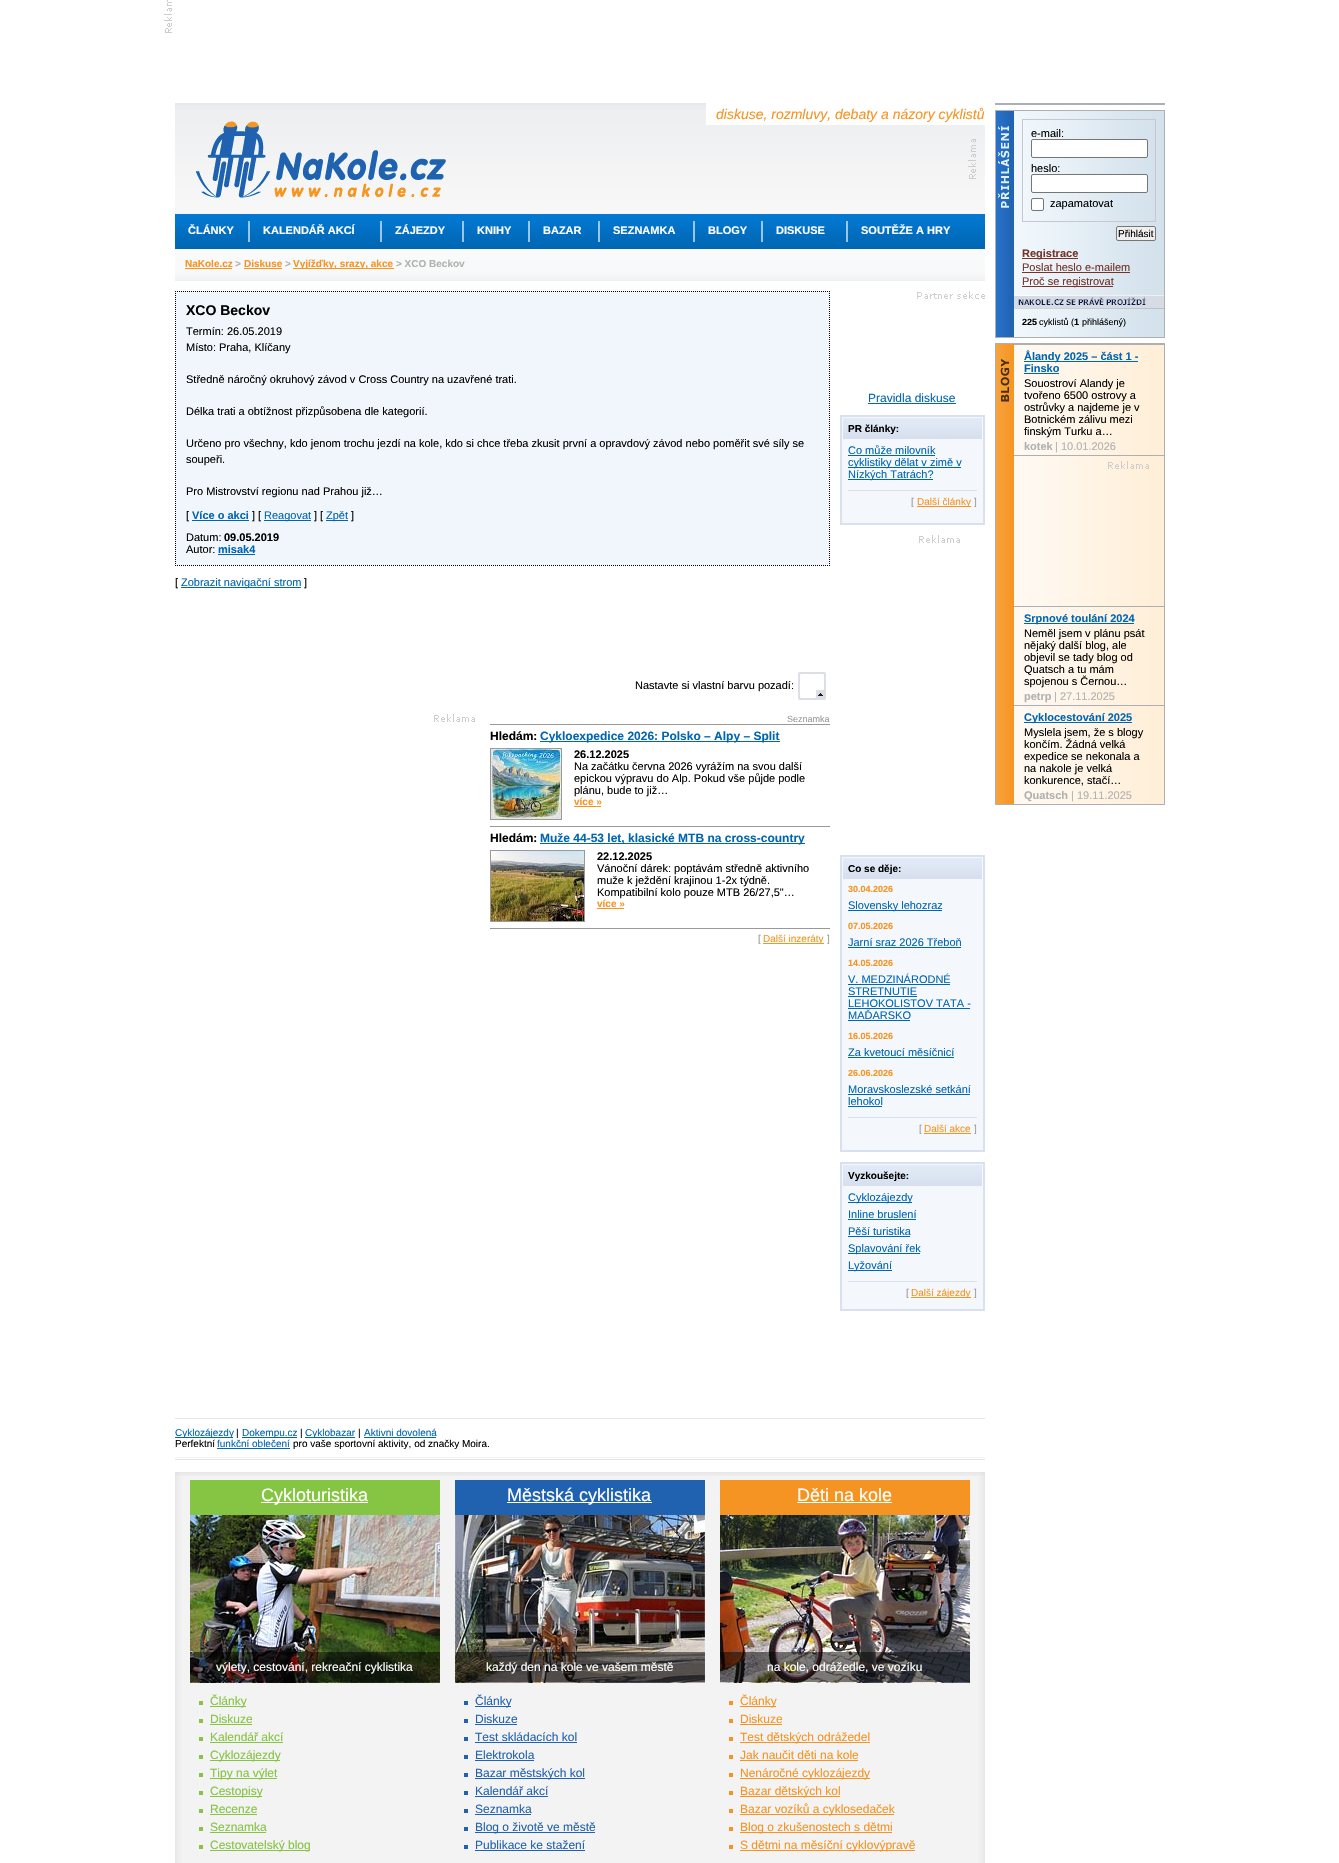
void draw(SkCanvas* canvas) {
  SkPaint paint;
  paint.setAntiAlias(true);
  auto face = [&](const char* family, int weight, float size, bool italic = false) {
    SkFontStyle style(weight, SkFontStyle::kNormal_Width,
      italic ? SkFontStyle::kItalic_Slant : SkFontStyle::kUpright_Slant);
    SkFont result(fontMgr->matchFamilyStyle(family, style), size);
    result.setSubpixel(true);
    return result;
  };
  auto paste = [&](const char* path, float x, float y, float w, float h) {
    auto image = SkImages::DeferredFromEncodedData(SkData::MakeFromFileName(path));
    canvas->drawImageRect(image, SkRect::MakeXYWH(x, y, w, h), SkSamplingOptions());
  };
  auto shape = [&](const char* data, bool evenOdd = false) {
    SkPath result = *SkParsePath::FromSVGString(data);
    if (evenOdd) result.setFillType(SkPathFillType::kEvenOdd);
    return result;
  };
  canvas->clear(0xffffffff);
  paste("img/1.png", 164, 0, 8, 33);
  paste("img/2.png", 175, 103, 810, 111);
  paint.setColor(0xffffffff);
  canvas->drawRect(SkRect::MakeXYWH(706, 103, 279, 22), paint);
  paste("img/3.png", 196, 121, 250, 77);
  paste("img/4.png", 968, 139, 8, 40);
  paste("img/5.png", 175, 214, 810, 35);
  paste("img/6.png", 248, 221, 2, 21);
  paste("img/6.png", 380, 221, 2, 21);
  paste("img/6.png", 462, 221, 2, 21);
  paste("img/6.png", 528, 221, 2, 21);
  paste("img/6.png", 598, 221, 2, 21);
  paste("img/6.png", 693, 221, 2, 21);
  paste("img/6.png", 761, 221, 2, 21);
  paste("img/6.png", 846, 221, 2, 21);
  paste("img/7.png", 175, 249, 810, 32);
  {
    const struct { float x, y, w, h; SkColor color; } items[] = {
      {185, 268, 47, 1, 0xfff7931e},
      {244, 268, 38, 1, 0xfff7931e},
      {293, 268, 101, 1, 0xfff7931e},
      {175, 291, 655, 275, 0xfff0f6fb},
    };
    for (auto [x, y, w, h, color] : items) {
      paint.setColor(color);
      canvas->drawRect(SkRect::MakeXYWH(x, y, w, h), paint);
    }
  }
  paint.setStroke(true);
  paint.setStrokeWidth(1);
  paint.setColor(0xff000000);
  paint.setPathEffect(SkDashPathEffect::Make({{1, 1}}, 0));
  canvas->drawPath(shape("M175 291.5H830"), paint);
  paint.setPathEffect(nullptr);
  paint.setPathEffect(SkDashPathEffect::Make({{1, 1}}, 0));
  canvas->drawPath(shape("M829.5 291V566"), paint);
  paint.setPathEffect(nullptr);
  paint.setPathEffect(SkDashPathEffect::Make({{1, 1}}, 0));
  canvas->drawPath(shape("M175 565.5H830"), paint);
  paint.setPathEffect(nullptr);
  paint.setPathEffect(SkDashPathEffect::Make({{1, 1}}, 0));
  canvas->drawPath(shape("M175.5 291V566"), paint);
  paint.setPathEffect(nullptr);
  paint.setStroke(false);
  {
    const struct { float x, y, w, h; SkColor color; } items[] = {
      {192, 520, 57, 1, 0xff0066b3},
      {264, 520, 47, 1, 0xff0066b3},
      {326, 520, 22, 1, 0xff0066b3},
      {218, 554, 37, 1, 0xff0066b3},
      {181, 587, 120, 1, 0xff0066b3},
    };
    for (auto [x, y, w, h, color] : items) {
      paint.setColor(color);
      canvas->drawRect(SkRect::MakeXYWH(x, y, w, h), paint);
    }
  }
  paste("img/8.png", 798, 672, 28, 28);
  paste("img/9.png", 434, 714, 41, 8);
  {
    const struct { float x, y, w, h; SkColor color; } items[] = {
      {490, 724, 340, 1, 0xff999999},
      {490, 826, 340, 1, 0xff999999},
      {540, 741, 240, 1, 0xff0066b3},
    };
    for (auto [x, y, w, h, color] : items) {
      paint.setColor(color);
      canvas->drawRect(SkRect::MakeXYWH(x, y, w, h), paint);
    }
  }
  paint.setStroke(true);
  paint.setColor(0xff999999);
  canvas->drawRect(SkRect::MakeXYWH(490.5f, 748.5f, 71, 71), paint);
  paste("img/10.png", 491, 749, 70, 70);
  paint.setStroke(false);
  {
    const struct { float x, y, w, h; SkColor color; } items[] = {
      {574, 806, 27, 1, 0xfff7941e},
      {490, 928, 340, 1, 0xff999999},
      {540, 843, 265, 1, 0xff0066b3},
    };
    for (auto [x, y, w, h, color] : items) {
      paint.setColor(color);
      canvas->drawRect(SkRect::MakeXYWH(x, y, w, h), paint);
    }
  }
  paint.setStroke(true);
  paint.setColor(0xff999999);
  canvas->drawRect(SkRect::MakeXYWH(490.5f, 850.5f, 94, 71), paint);
  paste("img/11.png", 491, 851, 93, 70);
  paint.setStroke(false);
  paint.setColor(0xfff7941e);
  canvas->drawRect(SkRect::MakeXYWH(597, 908, 27, 1), paint);
  canvas->drawRect(SkRect::MakeXYWH(763, 943, 61, 1), paint);
  paste("img/12.png", 917, 291, 68, 8);
  paint.setColor(0xff0066b3);
  canvas->drawRect(SkRect::MakeXYWH(868, 403, 88, 1), paint);
  paint.setColor(0xfff4f8fd);
  canvas->drawRect(SkRect::MakeXYWH(841, 416, 143, 108), paint);
  paint.setStroke(true);
  paint.setStrokeWidth(2);
  paint.setColor(0xffd9e1f1);
  canvas->drawRect(SkRect::MakeXYWH(841, 416, 143, 108), paint);
  paste("img/13.png", 843, 418, 139, 21);
  paint.setStroke(false);
  {
    const struct { float x, y, w, h; SkColor color; } items[] = {
      {848, 455, 87, 1, 0xff0066b3},
      {848, 467, 113, 1, 0xff0066b3},
      {848, 479, 85, 1, 0xff0066b3},
      {848, 490, 129, 1, 0xffd9e1f1},
      {917, 506, 54, 1, 0xfff7941e},
    };
    for (auto [x, y, w, h, color] : items) {
      paint.setColor(color);
      canvas->drawRect(SkRect::MakeXYWH(x, y, w, h), paint);
    }
  }
  paste("img/9.png", 919, 535, 41, 8);
  paint.setColor(0xfff4f8fd);
  canvas->drawRect(SkRect::MakeXYWH(841, 856, 143, 295), paint);
  paint.setStroke(true);
  paint.setColor(0xffd9e1f1);
  canvas->drawRect(SkRect::MakeXYWH(841, 856, 143, 295), paint);
  paste("img/13.png", 843, 858, 139, 21);
  paint.setStroke(false);
  {
    const struct { float x, y, w, h; SkColor color; } items[] = {
      {848, 910, 94, 1, 0xff0066b3},
      {848, 947, 113, 1, 0xff0066b3},
      {848, 984, 102, 1, 0xff0066b3},
      {848, 996, 69, 1, 0xff0066b3},
      {848, 1008, 122, 1, 0xff0066b3},
      {848, 1020, 62, 1, 0xff0066b3},
      {848, 1057, 106, 1, 0xff0066b3},
      {848, 1094, 122, 1, 0xff0066b3},
      {848, 1106, 34, 1, 0xff0066b3},
      {848, 1117, 129, 1, 0xffd9e1f1},
      {924, 1133, 47, 1, 0xfff7941e},
    };
    for (auto [x, y, w, h, color] : items) {
      paint.setColor(color);
      canvas->drawRect(SkRect::MakeXYWH(x, y, w, h), paint);
    }
  }
  paint.setColor(0xfff4f8fd);
  canvas->drawRect(SkRect::MakeXYWH(841, 1163, 143, 147), paint);
  paint.setStroke(true);
  paint.setColor(0xffd9e1f1);
  canvas->drawRect(SkRect::MakeXYWH(841, 1163, 143, 147), paint);
  paste("img/13.png", 843, 1165, 139, 21);
  paint.setStroke(false);
  {
    const struct { float x, y, w, h; SkColor color; } items[] = {
      {848, 1202, 64, 1, 0xff0066b3},
      {848, 1219, 68, 1, 0xff0066b3},
      {848, 1236, 62, 1, 0xff0066b3},
      {848, 1253, 72, 1, 0xff0066b3},
      {848, 1270, 44, 1, 0xff0066b3},
      {848, 1281, 129, 1, 0xffd9e1f1},
      {911, 1297, 60, 1, 0xfff7941e},
      {175, 1418, 810, 1, 0xffe6e6e6},
      {175, 1437, 58, 1, 0xff0066b3},
      {242, 1437, 55, 1, 0xff0066b3},
      {305, 1437, 50, 1, 0xff0066b3},
      {364, 1437, 72, 1, 0xff0066b3},
      {217, 1448, 73, 1, 0xff0066b3},
      {175, 1457, 810, 1, 0xfff4f4f4},
      {175, 1459, 810, 1, 0xffe6e6e6},
    };
    for (auto [x, y, w, h, color] : items) {
      paint.setColor(color);
      canvas->drawRect(SkRect::MakeXYWH(x, y, w, h), paint);
    }
  }
  paste("img/14.png", 175, 1476, 810, 387);
  paste("img/15.png", 175, 1472, 810, 4);
  paint.setColor(0xff86c543);
  canvas->drawRect(SkRect::MakeXYWH(190, 1480, 250, 35), paint);
  paint.setColor(0xffffffff);
  canvas->drawRect(SkRect::MakeXYWH(261, 1502, 107, 1), paint);
  paste("img/16.png", 190, 1515, 250, 168);
  {
    const struct { float x, y, w, h; SkColor color; } items[] = {
      {190, 1652, 250, 30, 0x80000000},
      {199, 1701, 4, 4, 0xff86c543},
      {210, 1706, 36, 1, 0xff86c543},
      {199, 1719, 4, 4, 0xff86c543},
      {210, 1724, 42, 1, 0xff86c543},
      {199, 1737, 4, 4, 0xff86c543},
      {210, 1742, 73, 1, 0xff86c543},
      {199, 1755, 4, 4, 0xff86c543},
      {210, 1760, 70, 1, 0xff86c543},
      {199, 1773, 4, 4, 0xff86c543},
      {210, 1778, 67, 1, 0xff86c543},
      {199, 1791, 4, 4, 0xff86c543},
      {210, 1796, 52, 1, 0xff86c543},
      {199, 1809, 4, 4, 0xff86c543},
      {210, 1814, 47, 1, 0xff86c543},
      {199, 1827, 4, 4, 0xff86c543},
      {210, 1832, 56, 1, 0xff86c543},
      {199, 1845, 4, 4, 0xff86c543},
      {210, 1850, 100, 1, 0xff86c543},
      {455, 1480, 250, 35, 0xff2162b0},
      {507, 1502, 145, 1, 0xffffffff},
    };
    for (auto [x, y, w, h, color] : items) {
      paint.setColor(color);
      canvas->drawRect(SkRect::MakeXYWH(x, y, w, h), paint);
    }
  }
  paste("img/17.png", 455, 1515, 250, 168);
  {
    const struct { float x, y, w, h; SkColor color; } items[] = {
      {455, 1652, 250, 30, 0x80000000},
      {464, 1701, 4, 4, 0xff2162b0},
      {475, 1706, 36, 1, 0xff2162b0},
      {464, 1719, 4, 4, 0xff2162b0},
      {475, 1724, 42, 1, 0xff2162b0},
      {464, 1737, 4, 4, 0xff2162b0},
      {475, 1742, 102, 1, 0xff2162b0},
      {464, 1755, 4, 4, 0xff2162b0},
      {475, 1760, 59, 1, 0xff2162b0},
      {464, 1773, 4, 4, 0xff2162b0},
      {475, 1778, 110, 1, 0xff2162b0},
      {464, 1791, 4, 4, 0xff2162b0},
      {475, 1796, 73, 1, 0xff2162b0},
      {464, 1809, 4, 4, 0xff2162b0},
      {475, 1814, 56, 1, 0xff2162b0},
      {464, 1827, 4, 4, 0xff2162b0},
      {475, 1832, 120, 1, 0xff2162b0},
      {464, 1845, 4, 4, 0xff2162b0},
      {475, 1850, 110, 1, 0xff2162b0},
      {720, 1480, 250, 35, 0xfff59423},
      {797, 1502, 95, 1, 0xffffffff},
    };
    for (auto [x, y, w, h, color] : items) {
      paint.setColor(color);
      canvas->drawRect(SkRect::MakeXYWH(x, y, w, h), paint);
    }
  }
  paste("img/18.png", 720, 1515, 250, 168);
  {
    const struct { float x, y, w, h; SkColor color; } items[] = {
      {720, 1652, 250, 30, 0x80000000},
      {729, 1701, 4, 4, 0xfff59423},
      {740, 1706, 36, 1, 0xfff59423},
      {729, 1719, 4, 4, 0xfff59423},
      {740, 1724, 42, 1, 0xfff59423},
      {729, 1737, 4, 4, 0xfff59423},
      {740, 1742, 130, 1, 0xfff59423},
      {729, 1755, 4, 4, 0xfff59423},
      {740, 1760, 118, 1, 0xfff59423},
      {729, 1773, 4, 4, 0xfff59423},
      {740, 1778, 130, 1, 0xfff59423},
      {729, 1791, 4, 4, 0xfff59423},
      {740, 1796, 100, 1, 0xfff59423},
      {729, 1809, 4, 4, 0xfff59423},
      {740, 1814, 154, 1, 0xfff59423},
      {729, 1827, 4, 4, 0xfff59423},
      {740, 1832, 152, 1, 0xfff59423},
      {729, 1845, 4, 4, 0xfff59423},
      {740, 1850, 175, 1, 0xfff59423},
      {995, 103, 170, 2, 0xffaeafb2},
    };
    for (auto [x, y, w, h, color] : items) {
      paint.setColor(color);
      canvas->drawRect(SkRect::MakeXYWH(x, y, w, h), paint);
    }
  }
  paste("img/19.png", 996, 111, 18, 226);
  paint.setStroke(true);
  paint.setStrokeWidth(1);
  canvas->drawRect(SkRect::MakeXYWH(995.5f, 110.5f, 169, 227), paint);
  paste("img/20.png", 1014, 111, 150, 184);
  paint.setColor(0xffc6c7d1);
  canvas->drawRect(SkRect::MakeXYWH(1022.5f, 119.5f, 133, 102), paint);
  paint.setStroke(false);
  paint.setColor(0xffffffff);
  canvas->drawRoundRect(SkRect::MakeXYWH(1031.5f, 139.5f, 116, 18), 1.5f, 1.5f, paint);
  paint.setStroke(true);
  paint.setColor(0xff767676);
  canvas->drawRoundRect(SkRect::MakeXYWH(1031.5f, 139.5f, 116, 18), 1.5f, 1.5f, paint);
  paint.setStroke(false);
  paint.setColor(0xffffffff);
  canvas->drawRoundRect(SkRect::MakeXYWH(1031.5f, 174.5f, 116, 18), 1.5f, 1.5f, paint);
  paint.setStroke(true);
  paint.setColor(0xff767676);
  canvas->drawRoundRect(SkRect::MakeXYWH(1031.5f, 174.5f, 116, 18), 1.5f, 1.5f, paint);
  paint.setStroke(false);
  paint.setColor(0xffffffff);
  canvas->drawRoundRect(SkRect::MakeXYWH(1031.5f, 198.5f, 12, 12), 1.5f, 1.5f, paint);
  paint.setStroke(true);
  paint.setColor(0xff767676);
  canvas->drawRoundRect(SkRect::MakeXYWH(1031.5f, 198.5f, 12, 12), 1.5f, 1.5f, paint);
  paint.setStroke(false);
  paint.setColor(0xffefefef);
  canvas->drawRoundRect(SkRect::MakeXYWH(1116.5f, 226.5f, 39, 14), 1.5f, 1.5f, paint);
  paint.setStroke(true);
  paint.setColor(0xff767676);
  canvas->drawRoundRect(SkRect::MakeXYWH(1116.5f, 226.5f, 39, 14), 1.5f, 1.5f, paint);
  paint.setStroke(false);
  {
    const struct { float x, y, w, h; SkColor color; } items[] = {
      {1022, 258, 56, 1, 0xff763328},
      {1022, 272, 108, 1, 0xff763328},
      {1022, 286, 91, 1, 0xff763328},
    };
    for (auto [x, y, w, h, color] : items) {
      paint.setColor(color);
      canvas->drawRect(SkRect::MakeXYWH(x, y, w, h), paint);
    }
  }
  paste("img/21.png", 1014, 295, 150, 14);
  paste("img/22.png", 1014, 309, 150, 28);
  paste("img/23.png", 996, 344, 18, 460);
  paint.setStroke(true);
  paint.setColor(0xffaeafb2);
  canvas->drawRect(SkRect::MakeXYWH(995.5f, 343.5f, 169, 461), paint);
  paste("img/24.png", 1014, 345, 150, 110);
  paint.setStroke(false);
  {
    const struct { float x, y, w, h; SkColor color; } items[] = {
      {1014, 344, 150, 1, 0xffaeafb2},
      {1024, 361, 114, 1, 0xff0066b3},
      {1024, 373, 35, 1, 0xff0066b3},
    };
    for (auto [x, y, w, h, color] : items) {
      paint.setColor(color);
      canvas->drawRect(SkRect::MakeXYWH(x, y, w, h), paint);
    }
  }
  paste("img/25.png", 1014, 456, 150, 150);
  paint.setColor(0xffaeafb2);
  canvas->drawRect(SkRect::MakeXYWH(1014, 455, 150, 1), paint);
  paste("img/26.png", 1108, 461, 41, 8);
  paste("img/27.png", 1014, 607, 150, 98);
  canvas->drawRect(SkRect::MakeXYWH(1014, 606, 150, 1), paint);
  paint.setColor(0xff0066b3);
  canvas->drawRect(SkRect::MakeXYWH(1024, 623, 110, 1), paint);
  paste("img/27.png", 1014, 706, 150, 98);
  paint.setColor(0xffaeafb2);
  canvas->drawRect(SkRect::MakeXYWH(1014, 705, 150, 1), paint);
  paint.setColor(0xff0066b3);
  canvas->drawRect(SkRect::MakeXYWH(1024, 722, 108, 1), paint);
  auto f0 = face("Liberation Sans", 400, 14, true);
  paint.setColor(0xfff7931e);
  canvas->drawString("diskuse, rozmluvy, debaty a názory cyklistů", 716, 119, f0, paint);
  auto f1 = face("Liberation Sans", 700, 11);
  paint.setColor(0xffffffff);
  {
    const struct { const char* s; float x, y; } items[] = {
      {"ČLÁNKY", 188, 234},
      {"KALENDÁŘ AKCÍ", 263, 234},
      {"ZÁJEZDY", 395, 234},
      {"KNIHY", 477, 234},
      {"BAZAR", 543, 234},
      {"SEZNAMKA", 613, 234},
      {"BLOGY", 708, 234},
      {"DISKUSE", 776, 234},
      {"SOUTĚŽE A HRY", 861, 234},
    };
    for (auto [s, x, y] : items) {
      canvas->drawString(s, x, y, f1, paint);
    }
  }
  auto f2 = face("Liberation Sans", 700, 10);
  paint.setColor(0xfff7931e);
  canvas->drawString("NaKole.cz", 185, 267, f2, paint);
  paint.setColor(0xffb1b1b1);
  canvas->drawString(">", 235, 267, f2, paint);
  paint.setColor(0xfff7931e);
  canvas->drawString("Diskuse", 244, 267, f2, paint);
  paint.setColor(0xffb1b1b1);
  canvas->drawString(">", 285, 267, f2, paint);
  paint.setColor(0xfff7931e);
  canvas->drawString("Vyjížďky, srazy, akce", 293, 267, f2, paint);
  paint.setColor(0xffb1b1b1);
  canvas->drawString("> XCO Beckov", 396, 267, f2, paint);
  auto f3 = face("Liberation Sans", 700, 14);
  paint.setColor(0xff000000);
  canvas->drawString("XCO Beckov", 186, 315, f3, paint);
  auto f4 = face("Liberation Sans", 400, 11);
  {
    const struct { const char* s; float x, y; } items[] = {
      {"Termín: 26.05.2019", 186, 335},
      {"Místo: Praha, Klíčany", 186, 351},
      {"Středně náročný okruhový závod v Cross Country na uzavřené trati.", 186, 383},
      {"Délka trati a obtížnost přizpůsobena dle kategorií.", 186, 415},
      {"Určeno pro všechny, kdo jenom trochu jezdí na kole, kdo si chce třeba zkusit první a opravdový závod nebo poměřit své síly se", 186, 447},
      {"soupeři.", 186, 463},
      {"Pro Mistrovství regionu nad Prahou již…", 186, 495},
      {"[", 186, 519},
    };
    for (auto [s, x, y] : items) {
      canvas->drawString(s, x, y, f4, paint);
    }
  }
  paint.setColor(0xff0066b3);
  canvas->drawString("Více o akci", 192, 519, f1, paint);
  paint.setColor(0xff000000);
  canvas->drawString("] [", 252, 519, f4, paint);
  paint.setColor(0xff0066b3);
  canvas->drawString("Reagovat", 264, 519, f4, paint);
  paint.setColor(0xff000000);
  canvas->drawString("] [", 314, 519, f4, paint);
  paint.setColor(0xff0066b3);
  canvas->drawString("Zpět", 326, 519, f4, paint);
  paint.setColor(0xff000000);
  canvas->drawString("]", 351, 519, f4, paint);
  canvas->drawString("Datum:", 186, 541, f4, paint);
  canvas->drawString("09.05.2019", 224, 541, f1, paint);
  canvas->drawString("Autor:", 186, 553, f4, paint);
  paint.setColor(0xff0066b3);
  canvas->drawString("misak4", 218, 553, f1, paint);
  paint.setColor(0xff000000);
  canvas->drawString("[", 175, 586, f4, paint);
  paint.setColor(0xff0066b3);
  canvas->drawString("Zobrazit navigační strom", 181, 586, f4, paint);
  paint.setColor(0xff000000);
  canvas->drawString("]", 304, 586, f4, paint);
  canvas->drawString("Nastavte si vlastní barvu pozadí:", 635, 689, f4, paint);
  auto f5 = face("Liberation Sans", 400, 9);
  paint.setColor(0xff999999);
  canvas->drawString("Seznamka", 787, 722, f5, paint);
  auto f6 = face("Liberation Sans", 700, 12);
  paint.setColor(0xff000000);
  canvas->drawString("Hledám:", 490, 740, f6, paint);
  paint.setColor(0xff0066b3);
  canvas->drawString("Cykloexpedice 2026: Polsko – Alpy – Split", 540, 740, f6, paint);
  paint.setColor(0xff000000);
  canvas->drawString("26.12.2025", 574, 758, f1, paint);
  {
    const struct { const char* s; float x, y; } items[] = {
      {"Na začátku června 2026 vyrážím na svou další", 574, 770},
      {"epickou výpravu do Alp. Pokud vše půjde podle", 574, 782},
      {"plánu, bude to již…", 574, 794},
    };
    for (auto [s, x, y] : items) {
      canvas->drawString(s, x, y, f4, paint);
    }
  }
  paint.setColor(0xfff7931e);
  canvas->drawString("více »", 574, 805, f2, paint);
  paint.setColor(0xff000000);
  canvas->drawString("Hledám:", 490, 842, f6, paint);
  paint.setColor(0xff0066b3);
  canvas->drawString("Muže 44-53 let, klasické MTB na cross-country", 540, 842, f6, paint);
  paint.setColor(0xff000000);
  canvas->drawString("22.12.2025", 597, 860, f1, paint);
  {
    const struct { const char* s; float x, y; } items[] = {
      {"Vánoční dárek: poptávám středně aktivního", 597, 872},
      {"muže k ježdění krajinou 1-2x týdně.", 597, 884},
      {"Kompatibilní kolo pouze MTB 26/27,5\"…", 597, 896},
    };
    for (auto [s, x, y] : items) {
      canvas->drawString(s, x, y, f4, paint);
    }
  }
  paint.setColor(0xfff7931e);
  canvas->drawString("více »", 597, 907, f2, paint);
  auto f7 = face("Liberation Sans", 400, 10);
  paint.setColor(0xff999999);
  canvas->drawString("[", 758, 942, f7, paint);
  paint.setColor(0xfff7931e);
  canvas->drawString("Další inzeráty", 763, 942, f7, paint);
  paint.setColor(0xff999999);
  canvas->drawString("]", 827, 942, f7, paint);
  auto f8 = face("Liberation Sans", 400, 12);
  paint.setColor(0xff0066b3);
  canvas->drawString("Pravidla diskuse", 868, 402, f8, paint);
  paint.setColor(0xff000000);
  canvas->drawString("PR články:", 848, 432, f2, paint);
  paint.setColor(0xff0066b3);
  {
    const struct { const char* s; float x, y; } items[] = {
      {"Co může milovník", 848, 454},
      {"cyklistiky dělat v zimě v", 848, 466},
      {"Nízkých Tatrách?", 848, 478},
    };
    for (auto [s, x, y] : items) {
      canvas->drawString(s, x, y, f4, paint);
    }
  }
  paint.setColor(0xff999999);
  canvas->drawString("[", 911, 505, f7, paint);
  paint.setColor(0xfff7931e);
  canvas->drawString("Další články", 917, 505, f7, paint);
  paint.setColor(0xff999999);
  canvas->drawString("]", 974, 505, f7, paint);
  paint.setColor(0xff000000);
  canvas->drawString("Co se děje:", 848, 872, f2, paint);
  auto f9 = face("Liberation Sans", 700, 9);
  paint.setColor(0xfff7931e);
  canvas->drawString("30.04.2026", 848, 892, f9, paint);
  paint.setColor(0xff0066b3);
  canvas->drawString("Slovensky lehozraz", 848, 909, f4, paint);
  paint.setColor(0xfff7931e);
  canvas->drawString("07.05.2026", 848, 929, f9, paint);
  paint.setColor(0xff0066b3);
  canvas->drawString("Jarní sraz 2026 Třeboň", 848, 946, f4, paint);
  paint.setColor(0xfff7931e);
  canvas->drawString("14.05.2026", 848, 966, f9, paint);
  paint.setColor(0xff0066b3);
  {
    const struct { const char* s; float x, y; } items[] = {
      {"V. MEDZINÁRODNÉ", 848, 983},
      {"STRETNUTIE", 848, 995},
      {"LEHOKOLISTOV TATA -", 848, 1007},
      {"MAĎARSKO", 848, 1019},
    };
    for (auto [s, x, y] : items) {
      canvas->drawString(s, x, y, f4, paint);
    }
  }
  paint.setColor(0xfff7931e);
  canvas->drawString("16.05.2026", 848, 1039, f9, paint);
  paint.setColor(0xff0066b3);
  canvas->drawString("Za kvetoucí měsíčnicí", 848, 1056, f4, paint);
  paint.setColor(0xfff7931e);
  canvas->drawString("26.06.2026", 848, 1076, f9, paint);
  paint.setColor(0xff0066b3);
  canvas->drawString("Moravskoslezské setkání", 848, 1093, f4, paint);
  canvas->drawString("lehokol", 848, 1105, f4, paint);
  paint.setColor(0xff999999);
  canvas->drawString("[", 919, 1132, f7, paint);
  paint.setColor(0xfff7931e);
  canvas->drawString("Další akce", 924, 1132, f7, paint);
  paint.setColor(0xff999999);
  canvas->drawString("]", 974, 1132, f7, paint);
  paint.setColor(0xff000000);
  canvas->drawString("Vyzkoušejte:", 848, 1179, f2, paint);
  paint.setColor(0xff0066b3);
  {
    const struct { const char* s; float x, y; } items[] = {
      {"Cyklozájezdy", 848, 1201},
      {"Inline bruslení", 848, 1218},
      {"Pěší turistika", 848, 1235},
      {"Splavování řek", 848, 1252},
      {"Lyžování", 848, 1269},
    };
    for (auto [s, x, y] : items) {
      canvas->drawString(s, x, y, f4, paint);
    }
  }
  paint.setColor(0xff999999);
  canvas->drawString("[", 906, 1296, f7, paint);
  paint.setColor(0xfff7931e);
  canvas->drawString("Další zájezdy", 911, 1296, f7, paint);
  paint.setColor(0xff999999);
  canvas->drawString("]", 974, 1296, f7, paint);
  paint.setColor(0xff0066b3);
  canvas->drawString("Cyklozájezdy", 175, 1436, f7, paint);
  paint.setColor(0xff000000);
  canvas->drawString("|", 236, 1436, f7, paint);
  paint.setColor(0xff0066b3);
  canvas->drawString("Dokempu.cz", 242, 1436, f7, paint);
  paint.setColor(0xff000000);
  canvas->drawString("|", 300, 1436, f7, paint);
  paint.setColor(0xff0066b3);
  canvas->drawString("Cyklobazar", 305, 1436, f7, paint);
  paint.setColor(0xff000000);
  canvas->drawString("|", 358, 1436, f7, paint);
  paint.setColor(0xff0066b3);
  canvas->drawString("Aktivni dovolená", 364, 1436, f7, paint);
  paint.setColor(0xff000000);
  canvas->drawString("Perfektní", 175, 1447, f7, paint);
  paint.setColor(0xff0066b3);
  canvas->drawString("funkční oblečení", 217, 1447, f7, paint);
  paint.setColor(0xff000000);
  canvas->drawString("pro vaše sportovní aktivity, od značky Moira.", 293, 1447, f7, paint);
  auto f10 = face("Liberation Sans", 400, 18);
  paint.setColor(0xffffffff);
  canvas->drawString("Cykloturistika", 261, 1501, f10, paint);
  canvas->drawString("výlety, cestování, rekreační cyklistika", 216, 1671, f8, paint);
  paint.setColor(0xff86c543);
  {
    const struct { const char* s; float x, y; } items[] = {
      {"Články", 210, 1705},
      {"Diskuze", 210, 1723},
      {"Kalendář akcí", 210, 1741},
      {"Cyklozájezdy", 210, 1759},
      {"Tipy na výlet", 210, 1777},
      {"Cestopisy", 210, 1795},
      {"Recenze", 210, 1813},
      {"Seznamka", 210, 1831},
      {"Cestovatelský blog", 210, 1849},
    };
    for (auto [s, x, y] : items) {
      canvas->drawString(s, x, y, f8, paint);
    }
  }
  paint.setColor(0xffffffff);
  canvas->drawString("Městská cyklistika", 507, 1501, f10, paint);
  canvas->drawString("každý den na kole ve vašem městě", 486, 1671, f8, paint);
  paint.setColor(0xff2162b0);
  {
    const struct { const char* s; float x, y; } items[] = {
      {"Články", 475, 1705},
      {"Diskuze", 475, 1723},
      {"Test skládacích kol", 475, 1741},
      {"Elektrokola", 475, 1759},
      {"Bazar městských kol", 475, 1777},
      {"Kalendář akcí", 475, 1795},
      {"Seznamka", 475, 1813},
      {"Blog o životě ve městě", 475, 1831},
      {"Publikace ke stažení", 475, 1849},
    };
    for (auto [s, x, y] : items) {
      canvas->drawString(s, x, y, f8, paint);
    }
  }
  paint.setColor(0xffffffff);
  canvas->drawString("Děti na kole", 797, 1501, f10, paint);
  canvas->drawString("na kole, odrážedle, ve vozíku", 767, 1671, f8, paint);
  paint.setColor(0xfff7931e);
  {
    const struct { const char* s; float x, y; } items[] = {
      {"Články", 740, 1705},
      {"Diskuze", 740, 1723},
      {"Test dětských odrážedel", 740, 1741},
      {"Jak naučit děti na kole", 740, 1759},
      {"Nenáročné cyklozájezdy", 740, 1777},
      {"Bazar dětských kol", 740, 1795},
      {"Bazar vozíků a cyklosedaček", 740, 1813},
      {"Blog o zkušenostech s dětmi", 740, 1831},
      {"S dětmi na měsíční cyklovýpravě", 740, 1849},
    };
    for (auto [s, x, y] : items) {
      canvas->drawString(s, x, y, f8, paint);
    }
  }
  paint.setColor(0xff000000);
  {
    const struct { const char* s; float x, y; } items[] = {
      {"e-mail:", 1031, 137},
      {"heslo:", 1031, 172},
      {"zapamatovat", 1050, 207},
    };
    for (auto [s, x, y] : items) {
      canvas->drawString(s, x, y, f4, paint);
    }
  }
  canvas->drawString("Přihlásit", 1118, 237, f7, paint);
  paint.setColor(0xff763328);
  canvas->drawString("Registrace", 1022, 257, f1, paint);
  canvas->drawString("Poslat heslo e-mailem", 1022, 271, f4, paint);
  canvas->drawString("Proč se registrovat", 1022, 285, f4, paint);
  paint.setColor(0xff000000);
  canvas->drawString("225", 1022, 325, f9, paint);
  canvas->drawString("cyklistů (", 1039, 325, f5, paint);
  canvas->drawString("1", 1074, 325, f9, paint);
  canvas->drawString("přihlášený)", 1082, 325, f5, paint);
  paint.setColor(0xff0066b3);
  canvas->drawString("Ålandy 2025 – část 1 -", 1024, 360, f1, paint);
  canvas->drawString("Finsko", 1024, 372, f1, paint);
  paint.setColor(0xff000000);
  {
    const struct { const char* s; float x, y; } items[] = {
      {"Souostroví Alandy je", 1024, 387},
      {"tvořeno 6500 ostrovy a", 1024, 399},
      {"ostrůvky a najdeme je v", 1024, 411},
      {"Botnickém zálivu mezi", 1024, 423},
      {"finským Turku a…", 1024, 435},
    };
    for (auto [s, x, y] : items) {
      canvas->drawString(s, x, y, f4, paint);
    }
  }
  paint.setColor(0xffb1b1b1);
  canvas->drawString("kotek", 1024, 450, f1, paint);
  canvas->drawString("| 10.01.2026", 1055, 450, f4, paint);
  paint.setColor(0xff0066b3);
  canvas->drawString("Srpnové toulání 2024", 1024, 622, f1, paint);
  paint.setColor(0xff000000);
  {
    const struct { const char* s; float x, y; } items[] = {
      {"Neměl jsem v plánu psát", 1024, 637},
      {"nějaký další blog, ale", 1024, 649},
      {"objevil se tady blog od", 1024, 661},
      {"Quatsch a tu mám", 1024, 673},
      {"spojenou s Černou…", 1024, 685},
    };
    for (auto [s, x, y] : items) {
      canvas->drawString(s, x, y, f4, paint);
    }
  }
  paint.setColor(0xffb1b1b1);
  canvas->drawString("petrp", 1024, 700, f1, paint);
  canvas->drawString("| 27.11.2025", 1054, 700, f4, paint);
  paint.setColor(0xff0066b3);
  canvas->drawString("Cyklocestování 2025", 1024, 721, f1, paint);
  paint.setColor(0xff000000);
  {
    const struct { const char* s; float x, y; } items[] = {
      {"Myslela jsem, že s blogy", 1024, 736},
      {"končím. Žádná velká", 1024, 748},
      {"expedice se nekonala a", 1024, 760},
      {"na nakole je velká", 1024, 772},
      {"konkurence, stačí…", 1024, 784},
    };
    for (auto [s, x, y] : items) {
      canvas->drawString(s, x, y, f4, paint);
    }
  }
  paint.setColor(0xffb1b1b1);
  canvas->drawString("Quatsch", 1024, 799, f1, paint);
  canvas->drawString("| 19.11.2025", 1071, 799, f4, paint);
}
